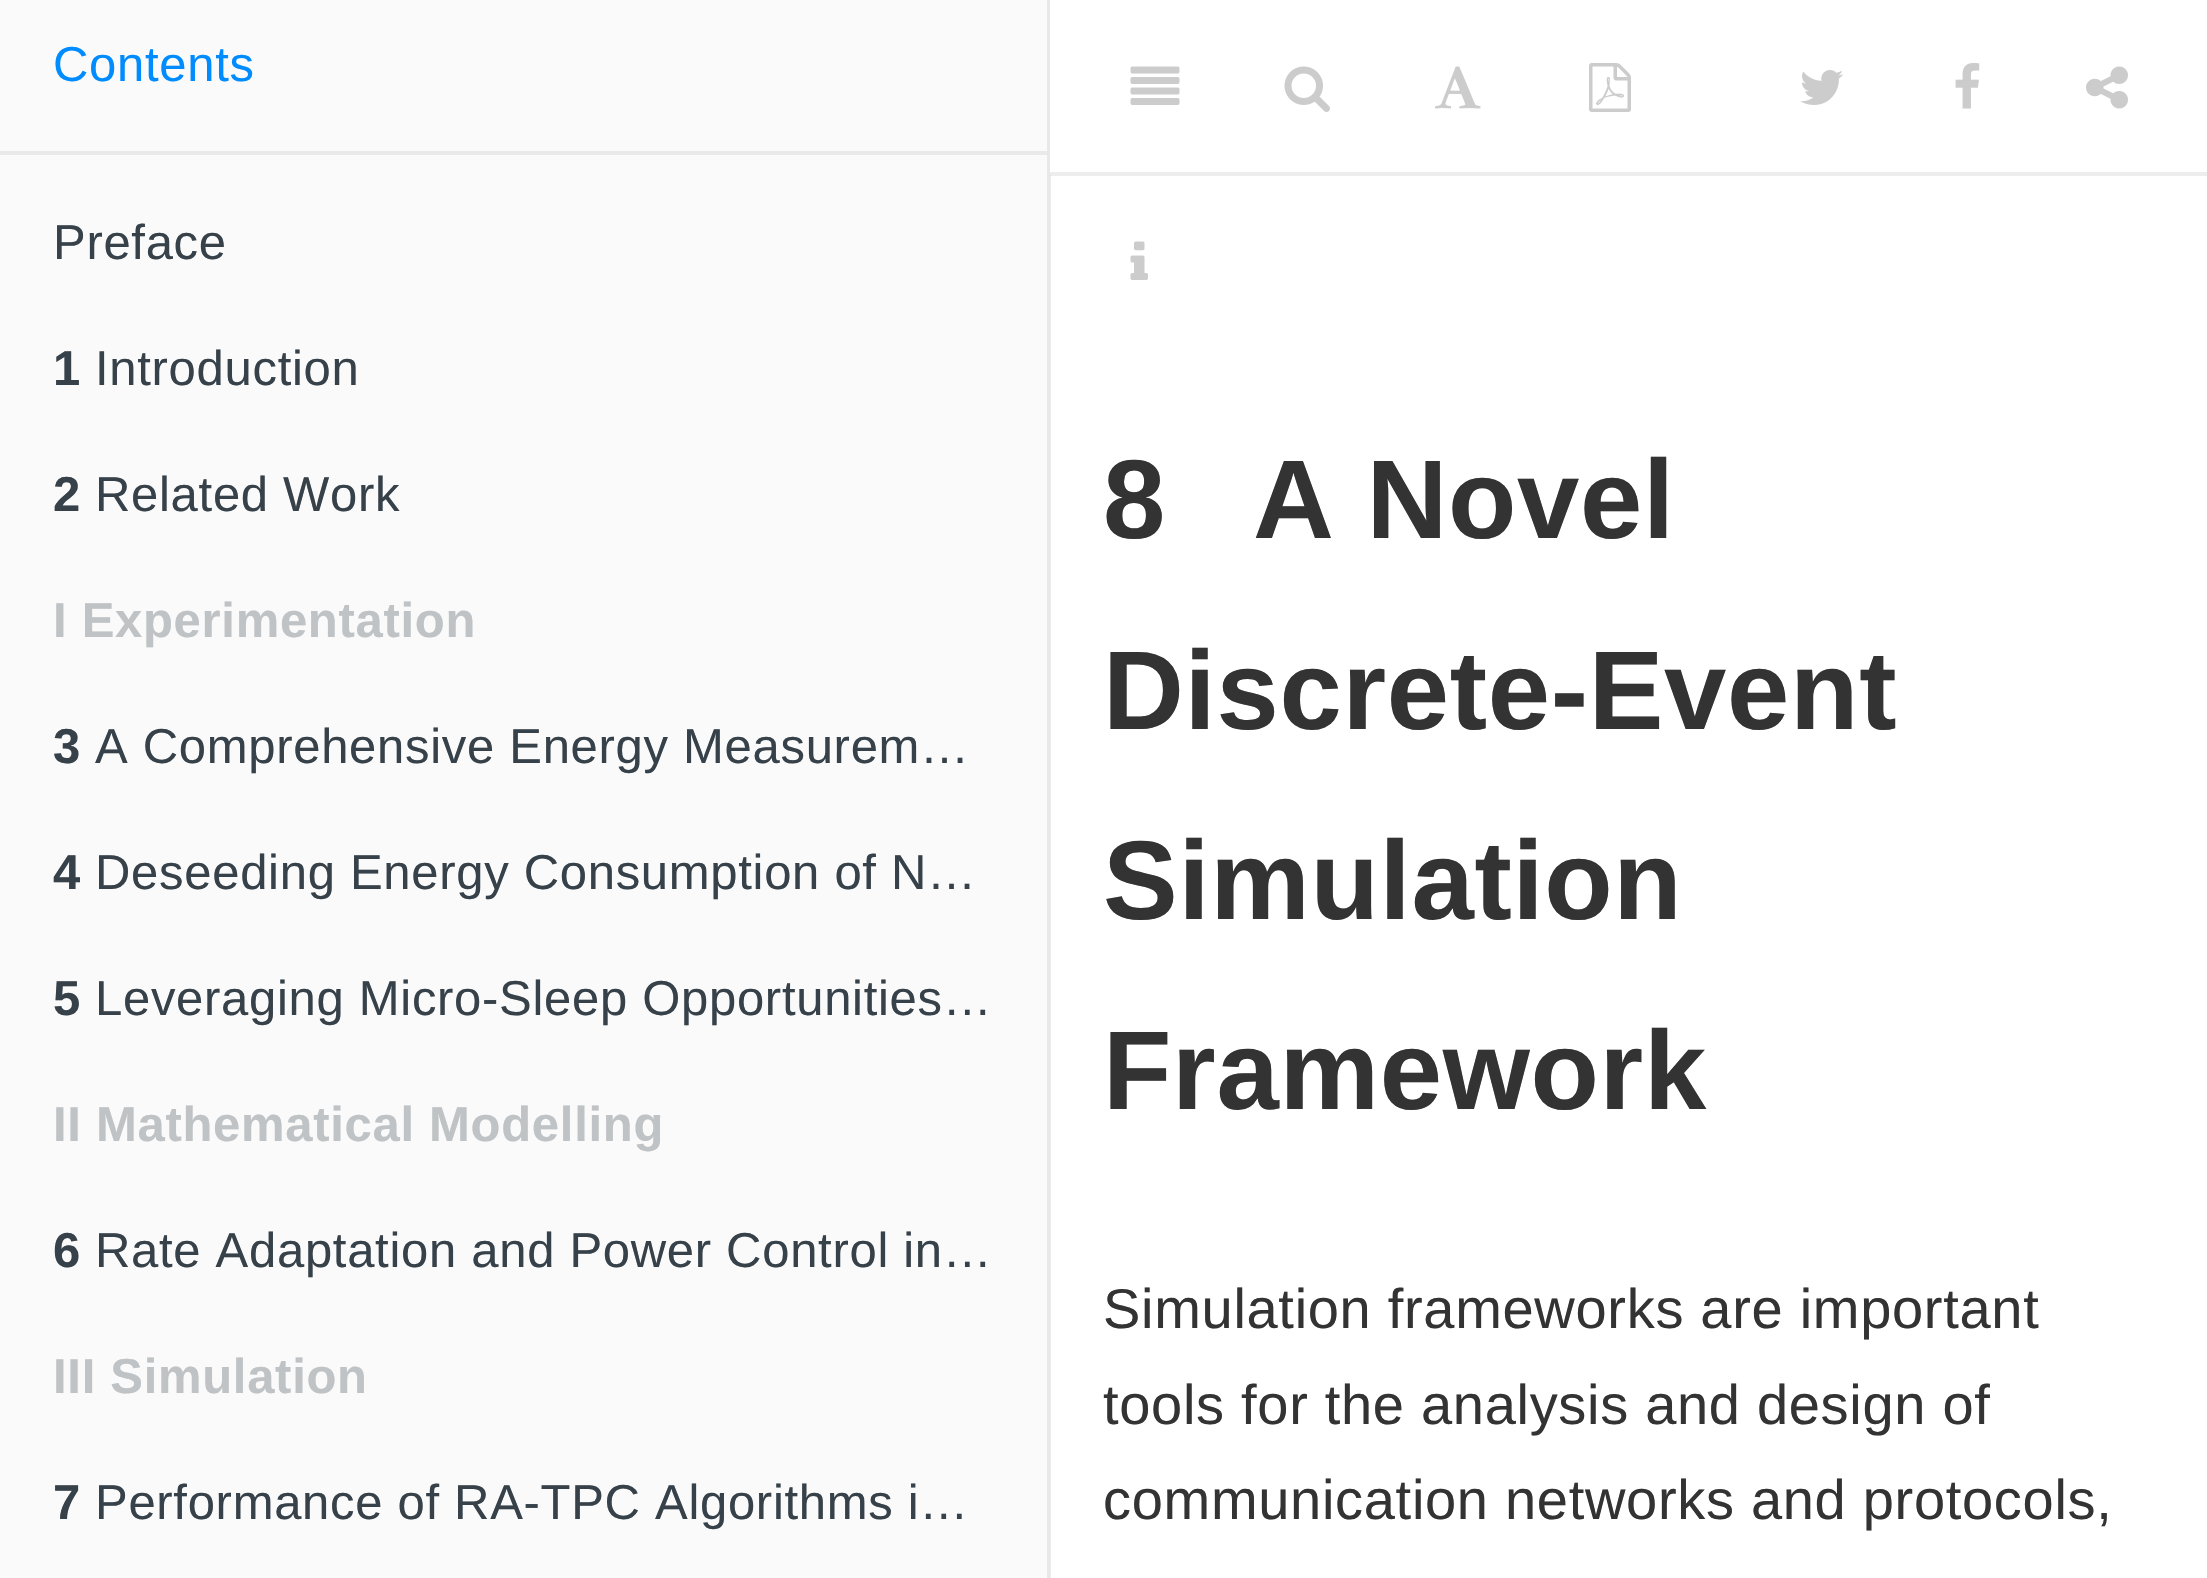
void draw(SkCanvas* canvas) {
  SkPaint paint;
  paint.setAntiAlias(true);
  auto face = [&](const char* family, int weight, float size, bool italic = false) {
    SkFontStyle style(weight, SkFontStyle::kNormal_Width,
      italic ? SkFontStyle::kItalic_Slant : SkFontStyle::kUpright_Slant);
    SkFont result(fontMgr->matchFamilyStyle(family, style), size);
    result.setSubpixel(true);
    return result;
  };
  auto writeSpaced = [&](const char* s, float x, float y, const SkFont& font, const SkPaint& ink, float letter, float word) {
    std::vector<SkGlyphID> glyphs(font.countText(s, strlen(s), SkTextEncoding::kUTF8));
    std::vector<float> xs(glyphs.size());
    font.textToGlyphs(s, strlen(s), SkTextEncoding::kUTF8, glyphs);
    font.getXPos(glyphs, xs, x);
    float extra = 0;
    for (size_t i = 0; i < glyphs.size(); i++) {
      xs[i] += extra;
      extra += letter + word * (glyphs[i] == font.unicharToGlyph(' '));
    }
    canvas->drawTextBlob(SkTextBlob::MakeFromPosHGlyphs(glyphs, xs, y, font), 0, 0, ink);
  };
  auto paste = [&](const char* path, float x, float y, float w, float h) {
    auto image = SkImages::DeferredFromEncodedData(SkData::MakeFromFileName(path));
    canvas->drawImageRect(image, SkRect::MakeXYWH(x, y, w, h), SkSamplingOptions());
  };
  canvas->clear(0xffffffff);
  {
    const struct { float x, y, w, h; SkColor color; } items[] = {
      {1050, 175, 1157, 1, 0xffededed},
      {1050, 176, 1, 1402, 0xffededed},
      {1050, 172, 1, 4, 0xffdcdcdc},
      {0, 0, 1047, 1578, 0xfffafafa},
      {1047, 0, 3, 1578, 0xffe8e8e8},
      {0, 151, 1047, 4, 0xffe9e9e9},
      {1050, 172, 1157, 3, 0xffededed},
    };
    for (auto [x, y, w, h, color] : items) {
      paint.setColor(color);
      canvas->drawRect(SkRect::MakeXYWH(x, y, w, h), paint);
    }
  }
  paste("img/1.png", 1130, 66, 50, 39);
  paste("img/2.png", 1284, 66, 46, 46);
  paste("img/3.png", 1435, 66, 46, 43);
  paste("img/4.png", 1589, 63, 42, 49);
  paste("img/5.png", 1800, 70, 43, 35);
  paste("img/6.png", 1955, 63, 25, 46);
  paste("img/7.png", 2086, 66, 42, 43);
  paste("img/8.png", 1130, 241, 18, 39);
  auto f0 = face("Liberation Sans", 400, 49);
  paint.setColor(0xff008cff);
  writeSpaced("Contents", 53, 81, f0, paint, 0.7f, 0);
  paint.setColor(0xff364149);
  writeSpaced("Preface", 53, 259, f0, paint, 0.7f, 0);
  auto f1 = face("Liberation Sans", 700, 49);
  writeSpaced("1", 53, 385, f1, paint, 0.7f, 0);
  writeSpaced("Introduction", 95, 385, f0, paint, 0.7f, 0);
  writeSpaced("2", 53, 511, f1, paint, 0.7f, 0);
  writeSpaced("Related Work", 95, 511, f0, paint, 0.7f, 0);
  paint.setColor(0xffbfc3c5);
  writeSpaced("I Experimentation", 53, 637, f1, paint, 0.7f, 0);
  paint.setColor(0xff364149);
  writeSpaced("3", 53, 763, f1, paint, 0.7f, 0);
  writeSpaced("A Comprehensive Energy Measurem…", 95, 763, f0, paint, 0.7f, 0);
  writeSpaced("4", 53, 889, f1, paint, 0.7f, 0);
  writeSpaced("Deseeding Energy Consumption of N…", 95, 889, f0, paint, 0.7f, 0);
  writeSpaced("5", 53, 1015, f1, paint, 0.7f, 0);
  writeSpaced("Leveraging Micro-Sleep Opportunities…", 95, 1015, f0, paint, 0.7f, 0);
  paint.setColor(0xffbfc3c5);
  writeSpaced("II Mathematical Modelling", 53, 1141, f1, paint, 0.7f, 0);
  paint.setColor(0xff364149);
  writeSpaced("6", 53, 1267, f1, paint, 0.7f, 0);
  writeSpaced("Rate Adaptation and Power Control in…", 95, 1267, f0, paint, 0.7f, 0);
  paint.setColor(0xffbfc3c5);
  writeSpaced("III Simulation", 53, 1393, f1, paint, 0.7f, 0);
  paint.setColor(0xff364149);
  writeSpaced("7", 53, 1519, f1, paint, 0.7f, 0);
  writeSpaced("Performance of RA-TPC Algorithms i…", 95, 1519, f0, paint, 0.7f, 0);
  auto f2 = face("Liberation Sans", 700, 112);
  paint.setColor(0xff333333);
  {
    const struct { const char* s; float x, y; } items[] = {
      {"8", 1103, 538},
      {"A Novel", 1253, 538},
      {"Discrete-Event", 1103, 729},
      {"Simulation", 1103, 919},
      {"Framework", 1103, 1109},
    };
    for (auto [s, x, y] : items) {
      writeSpaced(s, x, y, f2, paint, 0.7f, 0);
    }
  }
  auto f3 = face("Liberation Sans", 400, 56);
  {
    const struct { const char* s; float x, y; } items[] = {
      {"Simulation frameworks are important", 1103, 1328},
      {"tools for the analysis and design of", 1103, 1424},
      {"communication networks and protocols,", 1103, 1519},
    };
    for (auto [s, x, y] : items) {
      writeSpaced(s, x, y, f3, paint, 0.7f, 0);
    }
  }
}
